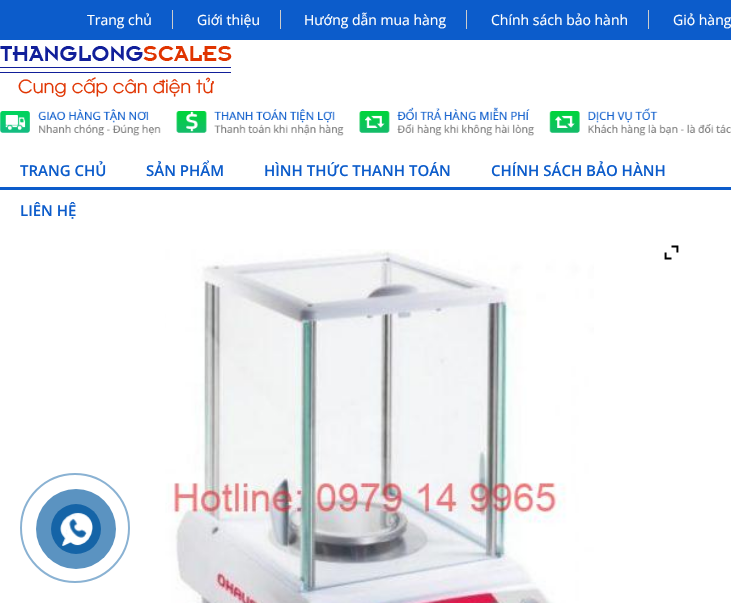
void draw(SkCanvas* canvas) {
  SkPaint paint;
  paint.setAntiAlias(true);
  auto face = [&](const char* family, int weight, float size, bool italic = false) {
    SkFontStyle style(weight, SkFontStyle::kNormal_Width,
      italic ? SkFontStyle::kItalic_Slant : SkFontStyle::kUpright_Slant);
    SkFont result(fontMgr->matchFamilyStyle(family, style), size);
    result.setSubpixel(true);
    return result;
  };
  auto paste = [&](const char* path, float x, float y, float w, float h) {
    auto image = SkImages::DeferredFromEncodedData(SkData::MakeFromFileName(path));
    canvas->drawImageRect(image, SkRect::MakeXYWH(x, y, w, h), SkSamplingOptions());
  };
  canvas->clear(0xffffffff);
  {
    const struct { float x, y, w, h; SkColor color; } items[] = {
      {0, 0, 731, 40, 0xff0c5ccb},
      {172, 10, 1, 19, 0xffcccccc},
      {280, 10, 1, 19, 0xffcccccc},
      {466, 10, 1, 19, 0xffcccccc},
      {648, 10, 1, 19, 0xffcccccc},
    };
    for (auto [x, y, w, h, color] : items) {
      paint.setColor(color);
      canvas->drawRect(SkRect::MakeXYWH(x, y, w, h), paint);
    }
  }
  paste("img/1.png", 0, 46, 232, 51);
  paste("img/2.png", 0, 107, 731, 29);
  paint.setColor(0xff0c5ccb);
  canvas->drawRect(SkRect::MakeXYWH(0, 187, 731, 3), paint);
  paste("img/3.png", 165, 249, 429, 354);
  paste("img/4.png", 664, 245, 15, 15);
  paint.setStroke(true);
  paint.setStrokeWidth(2);
  paint.setColor(0xff8ab2d3);
  canvas->drawCircle(75, 528, 54, paint);
  paint.setStroke(false);
  paint.setColor(0xff5b93c1);
  canvas->drawCircle(76, 529, 40, paint);
  paint.setColor(0xff1564a7);
  canvas->drawCircle(76, 529, 25, paint);
  paste("img/5.png", 60, 512, 33, 34);
  auto f0 = face("Open Sans", 400, 14);
  paint.setColor(0xffffffff);
  {
    const struct { const char* s; float x, y; } items[] = {
      {"Trang chủ", 87, 25},
      {"Giới thiệu", 197, 25},
      {"Hướng dẫn mua hàng", 304, 25},
      {"Chính sách bảo hành", 491, 25},
      {"Giỏ hàng", 673, 25},
    };
    for (auto [s, x, y] : items) {
      canvas->drawString(s, x, y, f0, paint);
    }
  }
  auto f1 = face("Open Sans", 600, 15);
  paint.setColor(0xff0c5ccb);
  {
    const struct { const char* s; float x, y; } items[] = {
      {"TRANG CHỦ", 20, 176},
      {"SẢN PHẨM", 146, 176},
      {"HÌNH THỨC THANH TOÁN", 264, 176},
      {"CHÍNH SÁCH BẢO HÀNH", 491, 176},
      {"LIÊN HỆ", 20, 216},
    };
    for (auto [s, x, y] : items) {
      canvas->drawString(s, x, y, f1, paint);
    }
  }
}
